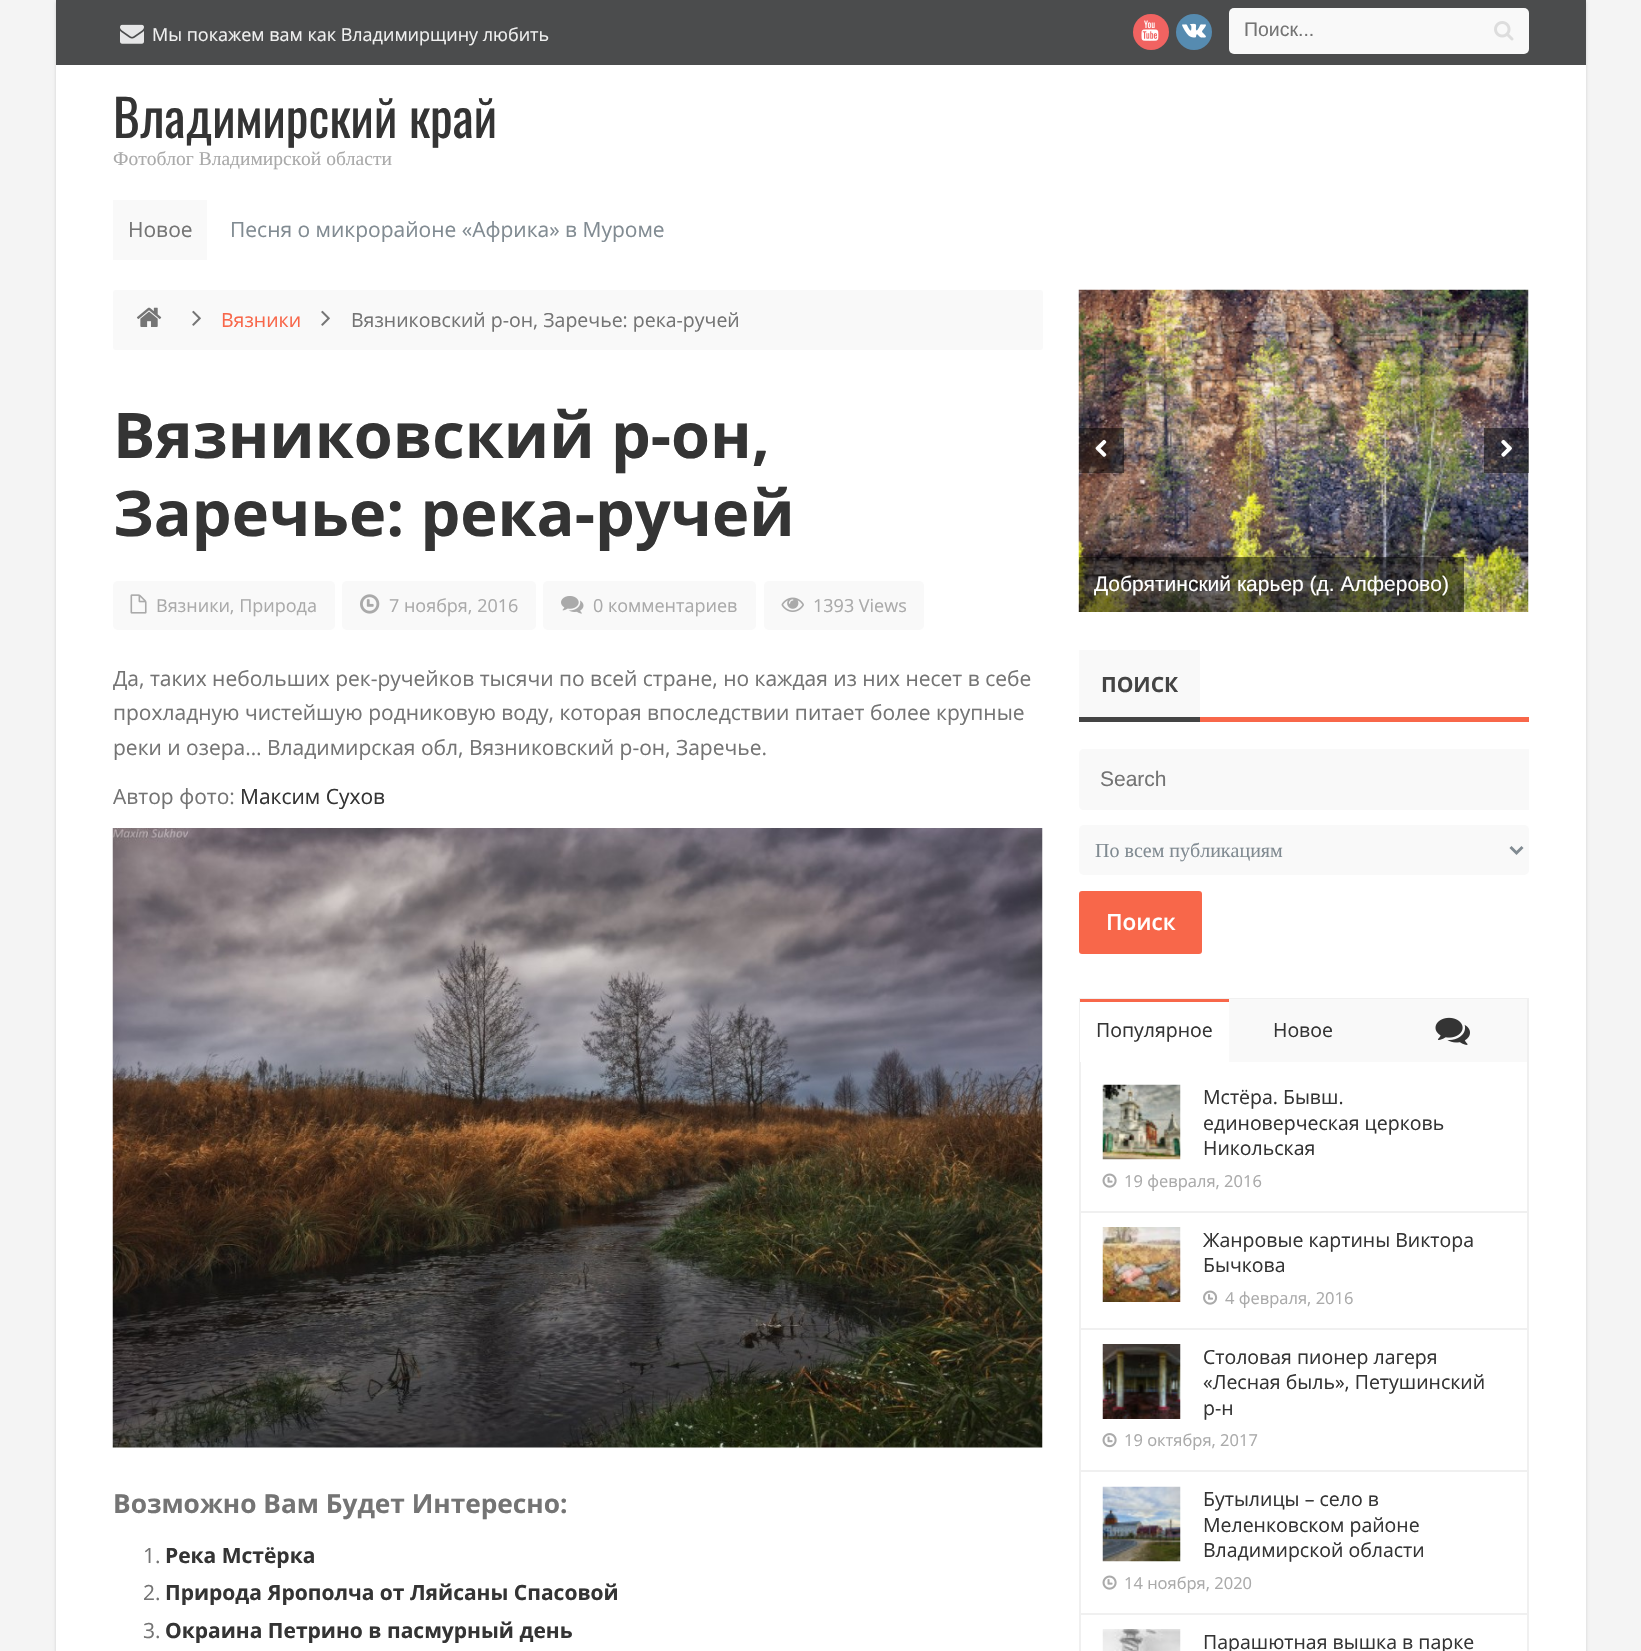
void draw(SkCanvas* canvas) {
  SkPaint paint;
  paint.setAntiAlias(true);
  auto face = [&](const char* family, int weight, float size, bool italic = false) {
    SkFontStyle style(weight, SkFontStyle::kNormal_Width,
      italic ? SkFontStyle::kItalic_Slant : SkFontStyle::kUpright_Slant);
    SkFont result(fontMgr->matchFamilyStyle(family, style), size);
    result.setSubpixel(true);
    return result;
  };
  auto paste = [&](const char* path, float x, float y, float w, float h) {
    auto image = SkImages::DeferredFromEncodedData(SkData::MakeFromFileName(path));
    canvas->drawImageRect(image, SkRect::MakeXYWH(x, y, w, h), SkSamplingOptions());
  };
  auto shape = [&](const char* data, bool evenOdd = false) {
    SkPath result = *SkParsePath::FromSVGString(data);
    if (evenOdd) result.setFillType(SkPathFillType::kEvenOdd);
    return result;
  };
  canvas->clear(0xfff4f4f4);
  paint.setColor(0x26000000);
  paint.setMaskFilter(SkMaskFilter::MakeBlur(kNormal_SkBlurStyle, 1.5f));
  canvas->drawRect(SkRect::MakeXYWH(56, 2, 1530, 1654), paint);
  paint.setMaskFilter(nullptr);
  paint.setColor(0xffffffff);
  canvas->drawRect(SkRect::MakeXYWH(56, 65, 1530, 1586), paint);
  paint.setColor(0xff4b4c4d);
  canvas->drawRect(SkRect::MakeXYWH(56, 0, 1530, 65), paint);
  paste("img/1.png", 120, 24, 24, 20);
  paint.setColor(0xfff16361);
  canvas->drawCircle(1151, 32, 18, paint);
  paste("img/2.png", 1141, 20, 18, 21);
  paint.setColor(0xff568bb0);
  canvas->drawCircle(1194, 32, 18, paint);
  paste("img/3.png", 1182, 23, 24, 15);
  paint.setColor(0xfff9f9f9);
  canvas->drawRoundRect(SkRect::MakeXYWH(1229, 8, 300, 46), 5, 5, paint);
  paste("img/4.png", 1494, 21, 20, 20);
  canvas->drawRect(SkRect::MakeXYWH(113, 200, 94, 60), paint);
  canvas->drawRoundRect(SkRect::MakeXYWH(113, 290, 930, 60), 3, 3, paint);
  paste("img/5.png", 136, 307, 26, 20);
  paste("img/6.png", 192, 310, 9, 16);
  paste("img/6.png", 321, 310, 9, 16);
  canvas->drawRoundRect(SkRect::MakeXYWH(113, 581, 222, 49), 5, 5, paint);
  paste("img/7.png", 130, 594, 17, 20);
  canvas->drawRoundRect(SkRect::MakeXYWH(342, 581, 194, 49), 5, 5, paint);
  paste("img/8.png", 360, 594, 20, 20);
  canvas->drawRoundRect(SkRect::MakeXYWH(543, 581, 213, 49), 5, 5, paint);
  paste("img/9.png", 561, 596, 23, 18);
  canvas->drawRoundRect(SkRect::MakeXYWH(764, 581, 160, 49), 5, 5, paint);
  paste("img/10.png", 781, 597, 23, 15);
  paste("img/11.png", 112, 828, 931, 620);
  paste("img/14.png", 1078, 289, 451, 323);
  paint.setColor(0x80000000);
  canvas->drawRect(SkRect::MakeXYWH(1079, 428, 45, 45), paint);
  paste("img/12.png", 1095, 439, 12, 18);
  canvas->drawRect(SkRect::MakeXYWH(1484, 428, 45, 45), paint);
  paste("img/13.png", 1501, 439, 11, 18);
  {
    const struct { float x, y, w, h; SkColor color; } items[] = {
      {1079, 557, 385, 55, 0x80000000},
      {1200, 717, 329, 5, 0xfff8674a},
      {1079, 650, 121, 67, 0xfff9f9f9},
      {1079, 717, 121, 5, 0xff444444},
    };
    for (auto [x, y, w, h, color] : items) {
      paint.setColor(color);
      canvas->drawRect(SkRect::MakeXYWH(x, y, w, h), paint);
    }
  }
  paint.setColor(0xfff9f9f9);
  canvas->drawPath(shape("M1084 749H1529V810H1084C1081 810 1079 808 1079 805V754C1079 751 1081 749 1084 749Z"), paint);
  canvas->drawRoundRect(SkRect::MakeXYWH(1079, 825, 450, 50), 5, 5, paint);
  paint.setStroke(true);
  paint.setStrokeWidth(3);
  paint.setColor(0xff818b92);
  canvas->drawPath(shape("M1510.5 847L1516.5 853L1522.5 847"), paint);
  paint.setStroke(false);
  paint.setColor(0xfff8674a);
  canvas->drawRoundRect(SkRect::MakeXYWH(1079, 891, 123, 63), 3, 3, paint);
  paint.setStroke(true);
  paint.setStrokeWidth(2);
  paint.setColor(0xfff0f0f0);
  canvas->drawRect(SkRect::MakeXYWH(1080, 999, 448, 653), paint);
  paint.setStroke(false);
  {
    const struct { float x, y, w, h; SkColor color; } items[] = {
      {1229, 999, 298, 63, 0xfff9f9f9},
      {1080, 1002, 1, 60, 0xffffffff},
      {1080, 999, 149, 3, 0xfff8674a},
    };
    for (auto [x, y, w, h, color] : items) {
      paint.setColor(color);
      canvas->drawRect(SkRect::MakeXYWH(x, y, w, h), paint);
    }
  }
  paste("img/15.png", 1435, 1017, 35, 28);
  paint.setColor(0xfff0f0f0);
  canvas->drawRect(SkRect::MakeXYWH(1080, 1211, 447, 2), paint);
  paste("img/16.png", 1102, 1084, 79, 76);
  paste("img/17.png", 1102, 1173, 15, 15);
  canvas->drawRect(SkRect::MakeXYWH(1080, 1328, 447, 2), paint);
  paste("img/18.png", 1102, 1227, 79, 75);
  paste("img/19.png", 1203, 1290, 15, 15);
  canvas->drawRect(SkRect::MakeXYWH(1080, 1470, 447, 2), paint);
  paste("img/20.png", 1102, 1344, 79, 75);
  paste("img/21.png", 1102, 1433, 15, 15);
  canvas->drawRect(SkRect::MakeXYWH(1080, 1613, 447, 2), paint);
  paste("img/22.png", 1102, 1486, 79, 76);
  paste("img/17.png", 1102, 1575, 15, 15);
  paste("img/23.png", 1102, 1629, 79, 22);
  auto f0 = face("Open Sans", 400, 18);
  canvas->drawString("Мы покажем вам как Владимирщину любить", 152, 41, f0, paint);
  auto f1 = face("Liberation Sans", 400, 19.5f);
  paint.setColor(0xff747474);
  canvas->drawString("Поиск...", 1244, 36, f1, paint);
  auto f2 = face("Oswald", 400, 51);
  paint.setColor(0xff343434);
  canvas->drawString("Владимирский край", 113, 138, f2, paint);
  auto f3 = face("Liberation Serif", 400, 19.5f);
  paint.setColor(0xffaaaaaa);
  canvas->drawString("Фотоблог Владимирской области", 113, 165, f3, paint);
  auto f4 = face("Open Sans", 400, 21);
  paint.setColor(0xff747474);
  canvas->drawString("Новое", 128, 237, f4, paint);
  paint.setColor(0xff818b92);
  canvas->drawString("Песня о микрорайоне «Африка» в Муроме", 230, 237, f4, paint);
  auto f5 = face("Open Sans", 400, 19.5f);
  paint.setColor(0xfff8674a);
  canvas->drawString("Вязники", 221, 327, f5, paint);
  paint.setColor(0xff747474);
  canvas->drawString("Вязниковский р-он, Заречье: река-ручей", 351, 327, f5, paint);
  auto f6 = face("Open Sans", 700, 63);
  paint.setColor(0xff343434);
  canvas->drawString("Вязниковский р-он,", 113, 458, f6, paint);
  canvas->save();
  canvas->clipRect(SkRect::MakeXYWH(113, 395, 930, 156));
  canvas->drawString("Заречье: река-ручей", 113, 536, f6, paint);
  canvas->restore();
  paint.setColor(0xffaaaaaa);
  {
    const struct { const char* s; float x, y; } items[] = {
      {"Вязники, Природа", 156, 612},
      {"7 ноября, 2016", 389, 612},
      {"0 комментариев", 593, 612},
      {"1393 Views", 813, 612},
    };
    for (auto [s, x, y] : items) {
      canvas->drawString(s, x, y, f0, paint);
    }
  }
  canvas->save();
  canvas->clipRect(SkRect::MakeXYWH(113, 660, 930, 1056));
  paint.setColor(0xff747474);
  canvas->drawString("Да, таких небольших рек-ручейков тысячи по всей стране, но каждая из них несет в себе", 113, 686, f4, paint);
  canvas->restore();
  {
    const struct { const char* s; float x, y; } items[] = {
      {"прохладную чистейшую родниковую воду, которая впоследствии питает более крупные", 113, 720},
      {"реки и озера… Владимирская обл, Вязниковский р-он, Заречье.", 113, 755},
      {"Автор фото:", 113, 804},
    };
    for (auto [s, x, y] : items) {
      canvas->drawString(s, x, y, f4, paint);
    }
  }
  paint.setColor(0xff343434);
  canvas->drawString("Максим Сухов", 240, 804, f4, paint);
  auto f7 = face("Open Sans", 700, 26.25f);
  paint.setColor(0xff747474);
  canvas->drawString("Возможно Вам Будет Интересно:", 113, 1513, f7, paint);
  canvas->drawString("1.", 143, 1563, f4, paint);
  auto f8 = face("Open Sans", 700, 21);
  paint.setColor(0xff343434);
  canvas->drawString("Река Мстёрка", 165, 1563, f8, paint);
  paint.setColor(0xff747474);
  canvas->drawString("2.", 143, 1600, f4, paint);
  paint.setColor(0xff343434);
  canvas->drawString("Природа Ярополча от Ляйсаны Спасовой", 165, 1600, f8, paint);
  paint.setColor(0xff747474);
  canvas->drawString("3.", 143, 1638, f4, paint);
  paint.setColor(0xff343434);
  canvas->drawString("Окраина Петрино в пасмурный день", 165, 1638, f8, paint);
  auto f9 = face("Liberation Sans", 400, 21);
  paint.setColor(0xffffffff);
  canvas->drawString("Добрятинский карьер (д. Алферово)", 1094, 591, f9, paint);
  paint.setColor(0xff444444);
  canvas->drawString("ПОИСК", 1101, 692, f8, paint);
  paint.setColor(0xff747474);
  canvas->drawString("Search", 1100, 786, f9, paint);
  auto f10 = face("Liberation Serif", 400, 20);
  paint.setColor(0xff818b92);
  canvas->drawString("По всем публикациям", 1095, 857, f10, paint);
  auto f11 = face("Open Sans", 600, 22.5f);
  paint.setColor(0xffffffff);
  canvas->drawString("Поиск", 1106, 930, f11, paint);
  paint.setColor(0xff343434);
  {
    const struct { const char* s; float x, y; } items[] = {
      {"Популярное", 1096, 1037},
      {"Новое", 1273, 1037},
      {"Мстёра. Бывш.", 1203, 1104},
      {"единоверческая церковь", 1203, 1130},
      {"Никольская", 1203, 1155},
    };
    for (auto [s, x, y] : items) {
      canvas->drawString(s, x, y, f5, paint);
    }
  }
  auto f12 = face("Open Sans", 400, 16.5f);
  paint.setColor(0xffaaaaaa);
  canvas->drawString("19 февраля, 2016", 1124, 1187, f12, paint);
  paint.setColor(0xff343434);
  canvas->drawString("Жанровые картины Виктора", 1203, 1247, f5, paint);
  canvas->drawString("Бычкова", 1203, 1272, f5, paint);
  paint.setColor(0xffaaaaaa);
  canvas->drawString("4 февраля, 2016", 1225, 1304, f12, paint);
  paint.setColor(0xff343434);
  {
    const struct { const char* s; float x, y; } items[] = {
      {"Столовая пионер лагеря", 1203, 1364},
      {"«Лесная быль», Петушинский", 1203, 1389},
      {"р-н", 1203, 1415},
    };
    for (auto [s, x, y] : items) {
      canvas->drawString(s, x, y, f5, paint);
    }
  }
  paint.setColor(0xffaaaaaa);
  canvas->drawString("19 октября, 2017", 1124, 1446, f12, paint);
  paint.setColor(0xff343434);
  {
    const struct { const char* s; float x, y; } items[] = {
      {"Бутылицы – село в", 1203, 1506},
      {"Меленковском районе", 1203, 1532},
      {"Владимирской области", 1203, 1557},
    };
    for (auto [s, x, y] : items) {
      canvas->drawString(s, x, y, f5, paint);
    }
  }
  paint.setColor(0xffaaaaaa);
  canvas->drawString("14 ноября, 2020", 1124, 1589, f12, paint);
  paint.setColor(0xff343434);
  canvas->drawString("Парашютная вышка в парке", 1203, 1649, f5, paint);
}
